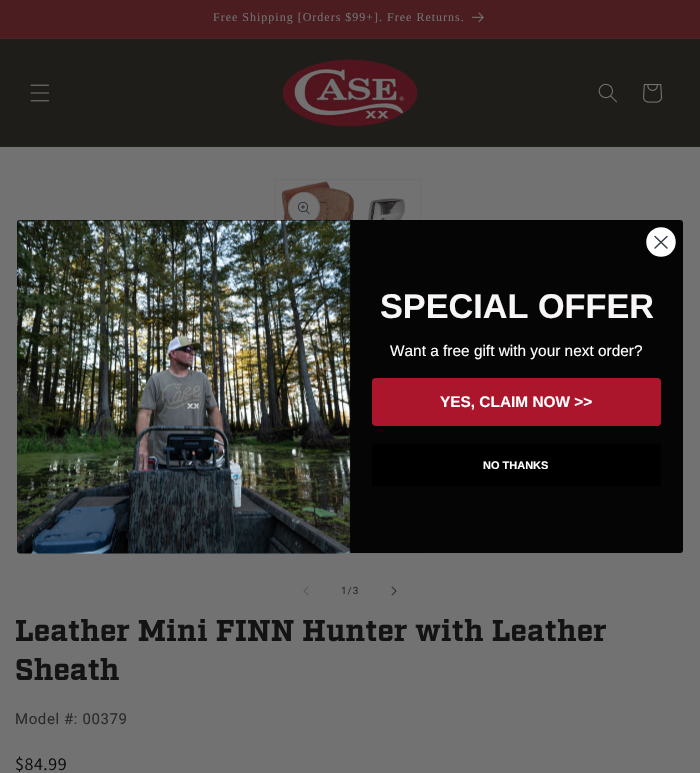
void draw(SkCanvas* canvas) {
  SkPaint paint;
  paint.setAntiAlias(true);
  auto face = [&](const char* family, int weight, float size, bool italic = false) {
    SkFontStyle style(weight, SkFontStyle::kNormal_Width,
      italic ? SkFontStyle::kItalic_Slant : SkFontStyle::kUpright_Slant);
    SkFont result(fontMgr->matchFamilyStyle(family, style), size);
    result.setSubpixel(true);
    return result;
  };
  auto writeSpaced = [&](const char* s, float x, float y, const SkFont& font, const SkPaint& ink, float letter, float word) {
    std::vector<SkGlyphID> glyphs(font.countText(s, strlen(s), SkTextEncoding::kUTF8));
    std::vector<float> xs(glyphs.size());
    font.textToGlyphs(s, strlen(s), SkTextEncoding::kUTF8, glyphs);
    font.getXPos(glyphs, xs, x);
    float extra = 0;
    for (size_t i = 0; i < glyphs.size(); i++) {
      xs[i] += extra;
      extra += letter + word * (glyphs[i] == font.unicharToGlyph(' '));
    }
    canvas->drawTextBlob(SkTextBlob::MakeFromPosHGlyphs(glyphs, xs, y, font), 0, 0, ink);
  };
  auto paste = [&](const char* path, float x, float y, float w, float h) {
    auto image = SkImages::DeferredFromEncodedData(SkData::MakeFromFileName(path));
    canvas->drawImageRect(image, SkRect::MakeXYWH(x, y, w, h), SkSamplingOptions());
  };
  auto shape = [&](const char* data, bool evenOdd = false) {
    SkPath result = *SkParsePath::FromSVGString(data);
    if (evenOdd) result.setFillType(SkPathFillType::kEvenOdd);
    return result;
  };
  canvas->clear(0xff727272);
  paint.setColor(0xff4b1c20);
  canvas->drawRect(SkRect::MakeXYWH(0, 0, 700, 38), paint);
  paint.setColor(0xff4e2326);
  canvas->drawRect(SkRect::MakeXYWH(0, 38, 700, 1), paint);
  paste("img/1.png", 472, 12, 12, 11);
  paint.setColor(0xff1e1d1a);
  canvas->drawRect(SkRect::MakeXYWH(0, 39, 700, 107), paint);
  paint.setColor(0xff252422);
  canvas->drawRect(SkRect::MakeXYWH(0, 146, 700, 1), paint);
  paste("img/2.png", 30, 84, 20, 18);
  paste("img/3.png", 282, 59, 136, 68);
  paste("img/4.png", 598, 83, 19, 20);
  paste("img/5.png", 643, 84, 20, 19);
  paint.setStroke(true);
  paint.setStrokeWidth(1);
  paint.setColor(0xff6d6d6d);
  canvas->drawRect(SkRect::MakeXYWH(275.5f, 179.5f, 145, 374), paint);
  paste("img/7.png", 279, 181, 131, 39);
  paint.setStroke(false);
  paint.setColor(0xff727272);
  canvas->drawCircle(304, 208, 16, paint);
  paint.setStroke(true);
  paint.setColor(0x1a131313);
  canvas->drawCircle(304, 208, 15.5f, paint);
  paint.setStroke(false);
  paint.setColor(0xff050505);
  canvas->drawRoundRect(SkRect::MakeXYWH(17, 220, 666, 333), 3, 3, paint);
  paint.setColor(0xffffffff);
  canvas->drawCircle(661, 242, 14, paint);
  paint.setStroke(true);
  paint.setStrokeWidth(1.5f);
  canvas->drawCircle(661, 242, 14, paint);
  paint.setStrokeCap(SkPaint::kRound_Cap);
  paint.setStrokeJoin(SkPaint::kRound_Join);
  paint.setColor(0xff373f47);
  canvas->drawPath(shape("M655 236.5L667 248M655 248L667 236.5Z"), paint);
  paste("img/6.png", 17, 220, 334, 334);
  paint.setStroke(false);
  paint.setColor(0xffac162c);
  canvas->drawRoundRect(SkRect::MakeXYWH(372, 378, 289, 48), 4, 4, paint);
  paint.setColor(0xff000000);
  canvas->drawRoundRect(SkRect::MakeXYWH(372, 444, 289, 42), 1.5f, 1.5f, paint);
  paste("img/8.png", 298, 202, 12, 12);
  paste("img/9.png", 303, 586, 6, 10);
  paste("img/10.png", 391, 586, 6, 10);
  auto f0 = face("Liberation Serif", 400, 12);
  paint.setColor(0xff727272);
  writeSpaced("Free Shipping [Orders $99+]. Free Returns.", 213, 21, f0, paint, 1, 0);
  auto f1 = face("Liberation Sans", 700, 34.25f);
  paint.setColor(0xfff8f6f6);
  canvas->drawString("SPECIAL OFFER", 380, 318, f1, paint);
  auto f2 = face("Liberation Sans", 400, 15.4f);
  paint.setColor(0xffffffff);
  canvas->drawString("Want a free gift with your next order?", 390, 356, f2, paint);
  auto f3 = face("Liberation Sans", 700, 15.4f);
  canvas->drawString("YES, CLAIM NOW >>", 440, 407, f3, paint);
  auto f4 = face("Liberation Sans", 700, 11);
  canvas->drawString("NO THANKS", 483, 469, f4, paint);
  auto f5 = face("Roboto", 400, 10);
  paint.setColor(0xff2b2b2b);
  writeSpaced("1/3", 341, 594, f5, paint, 1, 0);
  auto f6 = face("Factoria", 700, 30);
  paint.setColor(0xff131313);
  canvas->drawString("Leather Mini FINN Hunter with Leather", 15, 641, f6, paint);
  canvas->drawString("Sheath", 15, 680, f6, paint);
  auto f7 = face("Roboto", 400, 15);
  paint.setColor(0xff2b2b2b);
  writeSpaced("Model #: 00379", 15, 724, f7, paint, 0.6f, 0);
  auto f8 = face("Assistant", 400, 18);
  paint.setColor(0xff0c0c0c);
  writeSpaced("$84.99", 15, 770, f8, paint, 0.6f, 0);
}
